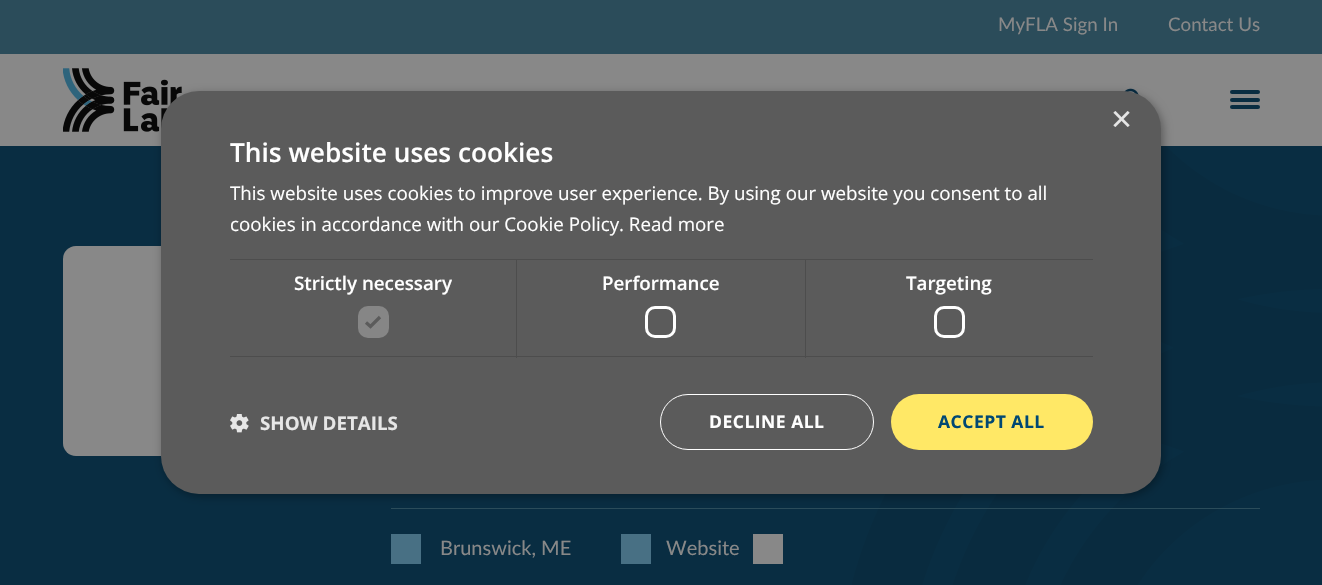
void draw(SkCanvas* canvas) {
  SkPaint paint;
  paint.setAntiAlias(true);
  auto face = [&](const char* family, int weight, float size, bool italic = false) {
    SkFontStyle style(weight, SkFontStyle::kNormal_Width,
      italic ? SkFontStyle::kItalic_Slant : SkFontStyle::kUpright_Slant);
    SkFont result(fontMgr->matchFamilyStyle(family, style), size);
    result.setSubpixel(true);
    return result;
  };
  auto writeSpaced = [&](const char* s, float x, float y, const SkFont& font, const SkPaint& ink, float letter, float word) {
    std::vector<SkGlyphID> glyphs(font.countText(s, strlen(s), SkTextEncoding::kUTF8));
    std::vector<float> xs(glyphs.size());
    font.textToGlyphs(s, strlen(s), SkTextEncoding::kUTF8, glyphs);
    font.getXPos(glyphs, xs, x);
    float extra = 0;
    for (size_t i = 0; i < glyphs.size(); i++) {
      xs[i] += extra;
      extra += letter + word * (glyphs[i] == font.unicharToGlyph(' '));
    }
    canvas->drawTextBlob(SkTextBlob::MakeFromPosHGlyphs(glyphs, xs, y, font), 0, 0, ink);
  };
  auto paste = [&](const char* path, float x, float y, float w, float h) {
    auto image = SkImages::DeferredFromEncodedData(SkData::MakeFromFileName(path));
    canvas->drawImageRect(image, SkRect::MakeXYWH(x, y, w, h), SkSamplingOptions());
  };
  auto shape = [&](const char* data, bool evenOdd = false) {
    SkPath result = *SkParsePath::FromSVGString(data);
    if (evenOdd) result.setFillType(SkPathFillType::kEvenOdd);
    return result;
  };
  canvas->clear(0xff888888);
  paint.setColor(0xff2b4c5a);
  canvas->drawRect(SkRect::MakeXYWH(0, 0, 1322, 54), paint);
  paste("img/1.png", 63, 68, 119, 64);
  paste("img/2.png", 1124, 88, 15, 7);
  paint.setColor(0xff092d42);
  canvas->drawRoundRect(SkRect::MakeXYWH(1230, 90, 30, 4), 2, 2, paint);
  canvas->drawRoundRect(SkRect::MakeXYWH(1230, 98, 30, 4), 2, 2, paint);
  canvas->drawRoundRect(SkRect::MakeXYWH(1230, 105, 30, 4), 2, 2, paint);
  canvas->drawRect(SkRect::MakeXYWH(0, 146, 1322, 439), paint);
  paste("img/3.png", 852, 146, 470, 439);
  paint.setColor(0xff888888);
  canvas->drawRoundRect(SkRect::MakeXYWH(63, 246, 291, 210), 13, 13, paint);
  {
    const struct { float x, y, w, h; SkColor color; } items[] = {
      {391, 508, 869, 1, 0xff2b4c5a},
      {391, 534, 30, 30, 0xff487084},
      {621, 534, 30, 30, 0xff487084},
      {753, 534, 30, 30, 0xff888888},
    };
    for (auto [x, y, w, h, color] : items) {
      paint.setColor(color);
      canvas->drawRect(SkRect::MakeXYWH(x, y, w, h), paint);
    }
  }
  paint.setColor(0x59000000);
  paint.setMaskFilter(SkMaskFilter::MakeBlur(kNormal_SkBlurStyle, 5));
  canvas->drawRoundRect(SkRect::MakeXYWH(163, 94, 1000, 402), 38, 38, paint);
  paint.setMaskFilter(nullptr);
  paint.setColor(0xff5b5b5b);
  canvas->drawRoundRect(SkRect::MakeXYWH(161, 91, 1000, 403), 38, 38, paint);
  {
    const struct { float x, y, w, h; SkColor color; } items[] = {
      {230, 259, 863, 1, 0xff4d4d4d},
      {516, 259, 1, 99, 0xff4d4d4d},
      {230, 356, 288, 1, 0xff4d4d4d},
    };
    for (auto [x, y, w, h, color] : items) {
      paint.setColor(color);
      canvas->drawRect(SkRect::MakeXYWH(x, y, w, h), paint);
    }
  }
  paint.setColor(0xff868686);
  canvas->drawRoundRect(SkRect::MakeXYWH(358, 306, 31, 32), 10, 10, paint);
  paint.setStroke(true);
  paint.setStrokeWidth(3.3f);
  paint.setColor(0xff5b5b5b);
  canvas->drawPath(shape("M366 322.5L370.5 326.5L380 317"), paint);
  paint.setStroke(false);
  paint.setColor(0xff4d4d4d);
  canvas->drawRect(SkRect::MakeXYWH(805, 259, 1, 99), paint);
  canvas->drawRect(SkRect::MakeXYWH(518, 356, 575, 1), paint);
  paint.setStroke(true);
  paint.setStrokeWidth(3);
  paint.setColor(0xffffffff);
  canvas->drawRoundRect(SkRect::MakeXYWH(646.5f, 307.5f, 28, 29), 8.5f, 8.5f, paint);
  canvas->drawRoundRect(SkRect::MakeXYWH(935.5f, 307.5f, 28, 29), 8.5f, 8.5f, paint);
  paste("img/4.png", 230, 414, 19, 19);
  paint.setStrokeWidth(1);
  canvas->drawRoundRect(SkRect::MakeXYWH(660.5f, 394.5f, 213, 55), 27.5f, 27.5f, paint);
  paint.setStroke(false);
  paint.setColor(0xffffe866);
  canvas->drawRoundRect(SkRect::MakeXYWH(891, 394, 202, 56), 28, 28, paint);
  auto f0 = face("Lato", 400, 18.75f);
  paint.setColor(0xff888888);
  canvas->drawString("MyFLA Sign In", 998, 31, f0, paint);
  canvas->drawString("Contact Us", 1168, 31, f0, paint);
  auto f1 = face("Lato", 400, 20);
  canvas->drawString("Brunswick, ME", 440, 555, f1, paint);
  canvas->drawString("Website", 666, 555, f1, paint);
  auto f2 = face("Liberation Sans", 400, 36);
  paint.setColor(0xffe6e6e6);
  canvas->drawString("×", 1111, 131, f2, paint);
  auto f3 = face("Open Sans", 600, 26.25f);
  paint.setColor(0xffffffff);
  canvas->drawString("This website uses cookies", 230, 162, f3, paint);
  auto f4 = face("Open Sans", 400, 18.75f);
  canvas->drawString("This website uses cookies to improve user experience. By using our website you consent to all", 230, 200, f4, paint);
  canvas->drawString("cookies in accordance with our Cookie Policy. Read more", 230, 231, f4, paint);
  auto f5 = face("Open Sans", 600, 18.75f);
  {
    const struct { const char* s; float x, y; } items[] = {
      {"Strictly necessary", 294, 290},
      {"Performance", 602, 290},
      {"Targeting", 906, 290},
    };
    for (auto [s, x, y] : items) {
      canvas->drawString(s, x, y, f5, paint);
    }
  }
  auto f6 = face("Open Sans", 700, 18.75f);
  paint.setColor(0xffe6e6e6);
  canvas->drawString("SHOW DETAILS", 260, 430, f6, paint);
  auto f7 = face("Open Sans", 700, 17.5f);
  paint.setColor(0xffffffff);
  writeSpaced("DECLINE ALL", 709, 428, f7, paint, 0.5f, 0);
  paint.setColor(0xff004873);
  writeSpaced("ACCEPT ALL", 938, 428, f7, paint, 0.5f, 0);
}
